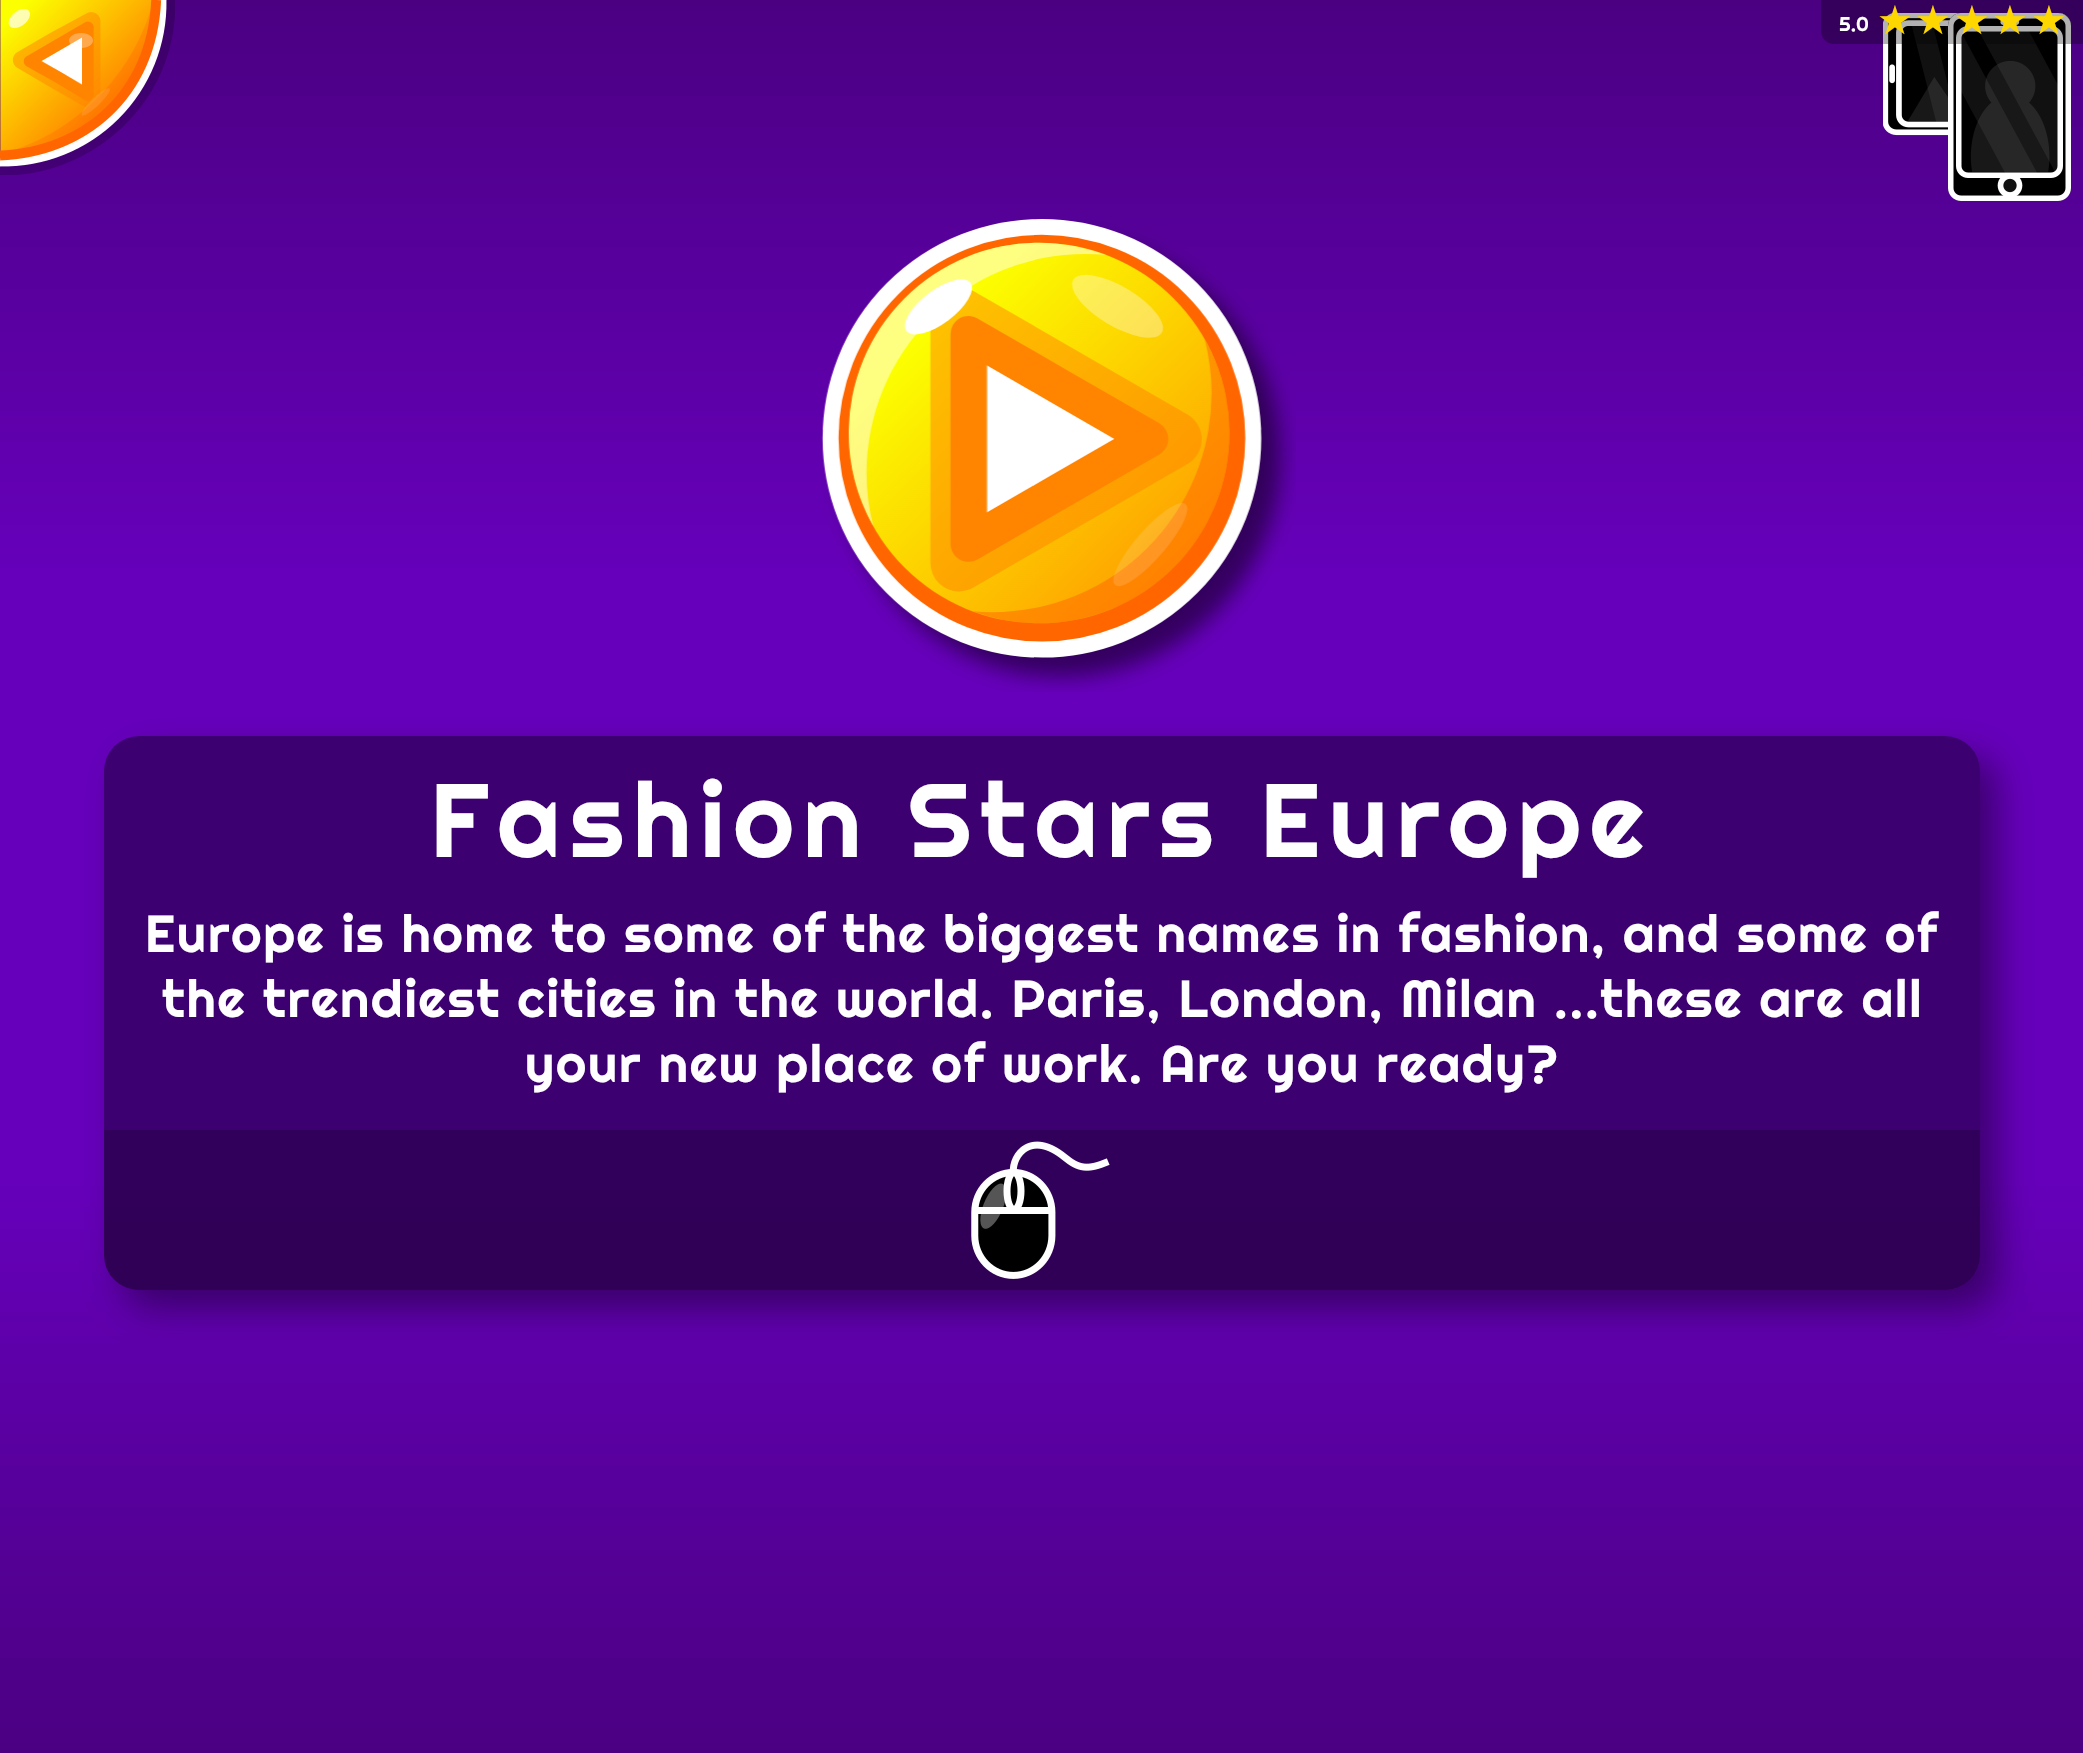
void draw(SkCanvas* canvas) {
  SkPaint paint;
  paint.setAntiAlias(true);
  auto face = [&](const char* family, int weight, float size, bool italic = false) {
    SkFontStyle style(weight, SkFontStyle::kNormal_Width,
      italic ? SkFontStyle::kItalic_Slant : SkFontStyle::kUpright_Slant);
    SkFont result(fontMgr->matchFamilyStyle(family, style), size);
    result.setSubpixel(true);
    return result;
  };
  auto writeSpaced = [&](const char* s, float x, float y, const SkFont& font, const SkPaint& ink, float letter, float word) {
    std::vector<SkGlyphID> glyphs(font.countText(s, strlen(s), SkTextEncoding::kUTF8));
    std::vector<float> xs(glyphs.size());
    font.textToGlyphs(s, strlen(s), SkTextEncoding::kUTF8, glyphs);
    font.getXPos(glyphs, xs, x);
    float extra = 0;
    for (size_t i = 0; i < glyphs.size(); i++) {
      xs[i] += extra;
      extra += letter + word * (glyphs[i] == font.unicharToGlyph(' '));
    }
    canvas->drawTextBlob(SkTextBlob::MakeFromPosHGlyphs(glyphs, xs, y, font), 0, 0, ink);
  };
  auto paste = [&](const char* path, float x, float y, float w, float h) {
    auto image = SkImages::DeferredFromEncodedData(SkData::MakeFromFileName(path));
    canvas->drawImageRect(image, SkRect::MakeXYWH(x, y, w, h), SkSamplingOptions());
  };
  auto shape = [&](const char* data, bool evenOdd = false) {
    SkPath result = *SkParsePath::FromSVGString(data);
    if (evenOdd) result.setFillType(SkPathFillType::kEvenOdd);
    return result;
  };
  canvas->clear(0xffffffff);
  {
    const SkColor colors[] = {0xff4b0082, 0xff6600bb, 0xff6600bb, 0xff4b0082};
    const float stops[] = {0, 0.33f, 0.67f, 1};
    const SkPoint ends[] = {{1042, 0}, {1042, 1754}};
    paint.setShader(SkGradientShader::MakeLinear(ends, colors, stops, 4, SkTileMode::kClamp));
    paint.setAlpha(255);
  }
  canvas->drawRect(SkRect::MakeXYWH(0, 0, 2083, 1753), paint);
  paste("img/1.png", 0, 0, 175, 175);
  paste("img/2.png", 1883, 13, 188, 123);
  paste("img/3.png", 1948, 13, 123, 188);
  paint.setShader(nullptr);
  paint.setColor(0x4d000000);
  canvas->drawPath(shape("M1821 0H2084V44H1834C1827 44 1821 38 1821 31Z"), paint);
  paste("img/4.png", 821, 219, 475, 473);
  canvas->save();
  canvas->clipPath(shape("M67 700H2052V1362H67ZM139 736H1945C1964.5 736 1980 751.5 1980 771V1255C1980 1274.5 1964.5 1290 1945 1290H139C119.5 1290 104 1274.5 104 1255V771C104 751.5 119.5 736 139 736Z", true), true);
  paint.setColor(0x66000000);
  paint.setMaskFilter(SkMaskFilter::MakeBlur(kNormal_SkBlurStyle, 17.5f));
  canvas->drawRoundRect(SkRect::MakeXYWH(121, 754, 1877, 554), 35, 35, paint);
  paint.setMaskFilter(nullptr);
  canvas->restore();
  canvas->drawRoundRect(SkRect::MakeXYWH(104, 736, 1876, 554), 35, 35, paint);
  paint.setColor(0x33000000);
  canvas->drawPath(shape("M104 1130H1980V1255C1980 1274.5 1964.5 1290 1945 1290H139C119.5 1290 104 1274.5 104 1255Z"), paint);
  paste("img/5.png", 971, 1141, 139, 138);
  auto f0 = face("Righteous", 400, 20);
  paint.setColor(0xffffffff);
  canvas->drawString("5.0", 1839, 31, f0, paint);
  auto f1 = face("DejaVu Sans", 400, 40);
  paint.setColor(0xffffd700);
  {
    const struct { const char* s; float x, y; } items[] = {
      {"★", 1877, 34},
      {"★", 1915, 34},
      {"★", 1954, 34},
      {"★", 1992, 34},
      {"★", 2031, 34},
    };
    for (auto [s, x, y] : items) {
      canvas->drawString(s, x, y, f1, paint);
    }
  }
  auto f2 = face("Righteous", 400, 104.25f);
  paint.setColor(0xffffffff);
  writeSpaced("Fashion Stars Europe", 430, 857, f2, paint, 8.75f, 0);
  auto f3 = face("Righteous", 400, 52.1f);
  {
    const struct { const char* s; float x, y; } items[] = {
      {"Europe is home to some of the biggest names in fashion, and some of", 145, 952},
      {"the trendiest cities in the world. Paris, London, Milan ...these are all", 162, 1017},
      {"your new place of work. Are you ready?", 525, 1082},
    };
    for (auto [s, x, y] : items) {
      writeSpaced(s, x, y, f3, paint, 1.75f, 0);
    }
  }
}
